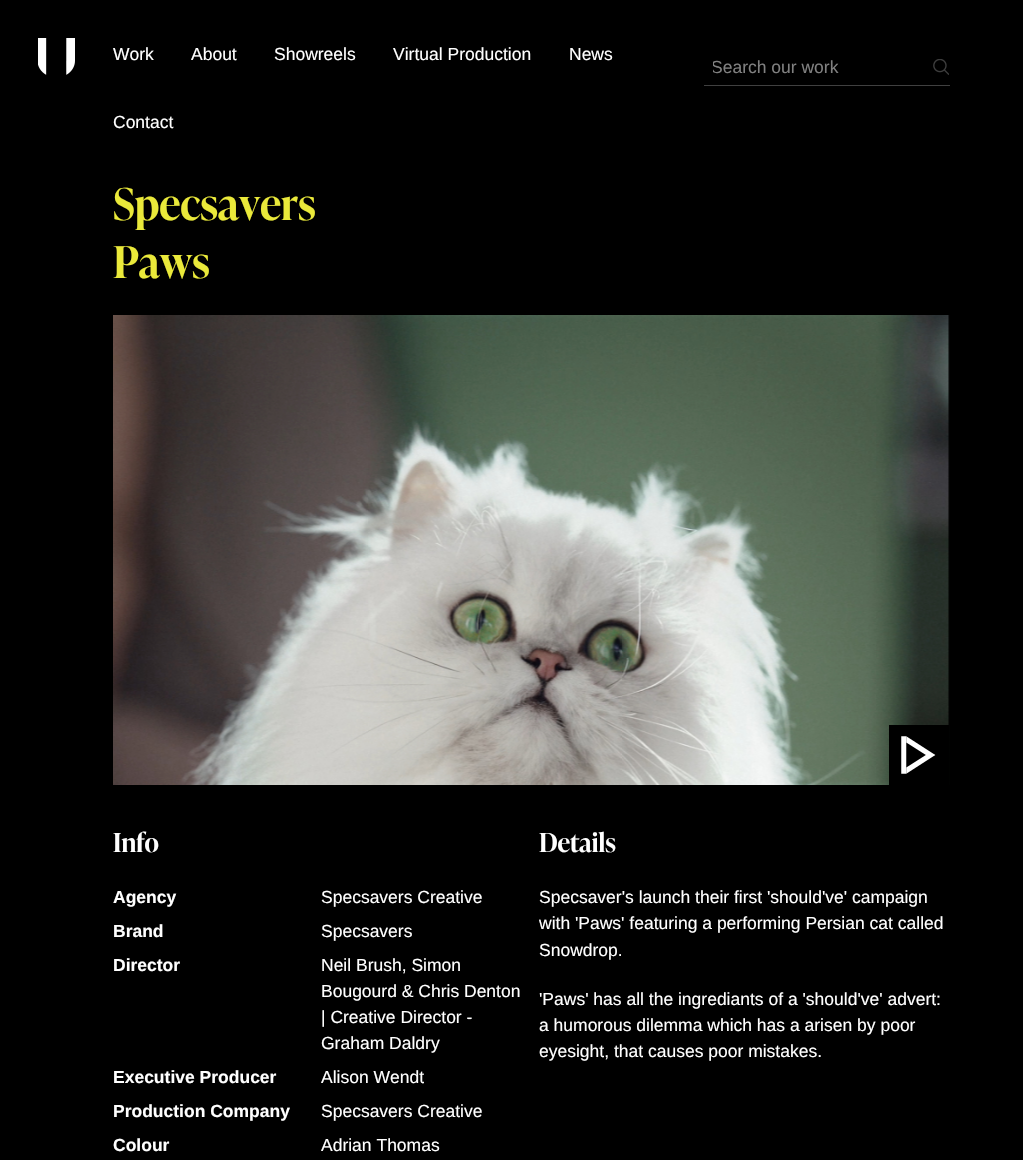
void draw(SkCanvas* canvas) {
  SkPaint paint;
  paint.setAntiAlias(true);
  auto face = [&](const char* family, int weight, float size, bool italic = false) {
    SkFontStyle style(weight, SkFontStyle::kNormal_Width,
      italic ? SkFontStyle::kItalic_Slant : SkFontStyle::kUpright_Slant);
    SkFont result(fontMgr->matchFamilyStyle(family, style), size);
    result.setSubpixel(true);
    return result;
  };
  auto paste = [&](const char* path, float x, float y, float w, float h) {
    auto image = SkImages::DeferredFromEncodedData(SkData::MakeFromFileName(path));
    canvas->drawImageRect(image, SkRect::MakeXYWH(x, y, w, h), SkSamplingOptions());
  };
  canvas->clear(0xff000000);
  paste("img/1.png", 38, 38, 37, 37);
  paste("img/2.png", 933, 59, 16, 16);
  paint.setColor(0xff404040);
  canvas->drawRect(SkRect::MakeXYWH(704, 85, 246, 1), paint);
  paste("img/3.png", 113, 315, 837, 470);
  paint.setColor(0xff000000);
  canvas->drawRect(SkRect::MakeXYWH(889, 725, 60, 60), paint);
  paste("img/4.png", 901, 736, 35, 38);
  auto f0 = face("Liberation Sans", 400, 17.5f);
  paint.setColor(0xffffffff);
  {
    const struct { const char* s; float x, y; } items[] = {
      {"Work", 113, 60},
      {"About", 191, 60},
      {"Showreels", 274, 60},
      {"Virtual Production", 393, 60},
      {"News", 569, 60},
      {"Contact", 113, 128},
    };
    for (auto [s, x, y] : items) {
      canvas->drawString(s, x, y, f0, paint);
    }
  }
  canvas->save();
  canvas->clipRect(SkRect::MakeXYWH(713, 56, 211, 20));
  paint.setColor(0xff808080);
  canvas->drawString("Search our work", 711, 73, f0, paint);
  canvas->restore();
  auto f1 = face("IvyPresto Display", 600, 43.75f);
  paint.setColor(0xffeae93a);
  canvas->drawString("Specsavers", 113, 220, f1, paint);
  canvas->drawString("Paws", 113, 278, f1, paint);
  auto f2 = face("IvyPresto Display", 600, 26);
  paint.setColor(0xffffffff);
  canvas->drawString("Info", 113, 852, f2, paint);
  auto f3 = face("Liberation Sans", 700, 17.5f);
  canvas->drawString("Agency", 113, 903, f3, paint);
  canvas->drawString("Specsavers Creative", 321, 903, f0, paint);
  canvas->drawString("Brand", 113, 937, f3, paint);
  canvas->drawString("Specsavers", 321, 937, f0, paint);
  canvas->drawString("Director", 113, 971, f3, paint);
  {
    const struct { const char* s; float x, y; } items[] = {
      {"Neil Brush, Simon", 321, 971},
      {"Bougourd & Chris Denton", 321, 997},
      {"| Creative Director -", 321, 1023},
      {"Graham Daldry", 321, 1049},
    };
    for (auto [s, x, y] : items) {
      canvas->drawString(s, x, y, f0, paint);
    }
  }
  canvas->drawString("Executive Producer", 113, 1083, f3, paint);
  canvas->drawString("Alison Wendt", 321, 1083, f0, paint);
  canvas->drawString("Production Company", 113, 1117, f3, paint);
  canvas->drawString("Specsavers Creative", 321, 1117, f0, paint);
  canvas->drawString("Colour", 113, 1151, f3, paint);
  canvas->drawString("Adrian Thomas", 321, 1151, f0, paint);
  canvas->drawString("Details", 539, 852, f2, paint);
  {
    const struct { const char* s; float x, y; } items[] = {
      {"Specsaver's launch their first 'should've' campaign", 539, 903},
      {"with 'Paws' featuring a performing Persian cat called", 539, 929},
      {"Snowdrop.", 539, 956},
      {"'Paws' has all the ingrediants of a 'should've' advert:", 539, 1005},
      {"a humorous dilemma which has a arisen by poor", 539, 1031},
      {"eyesight, that causes poor mistakes.", 539, 1057},
    };
    for (auto [s, x, y] : items) {
      canvas->drawString(s, x, y, f0, paint);
    }
  }
}
